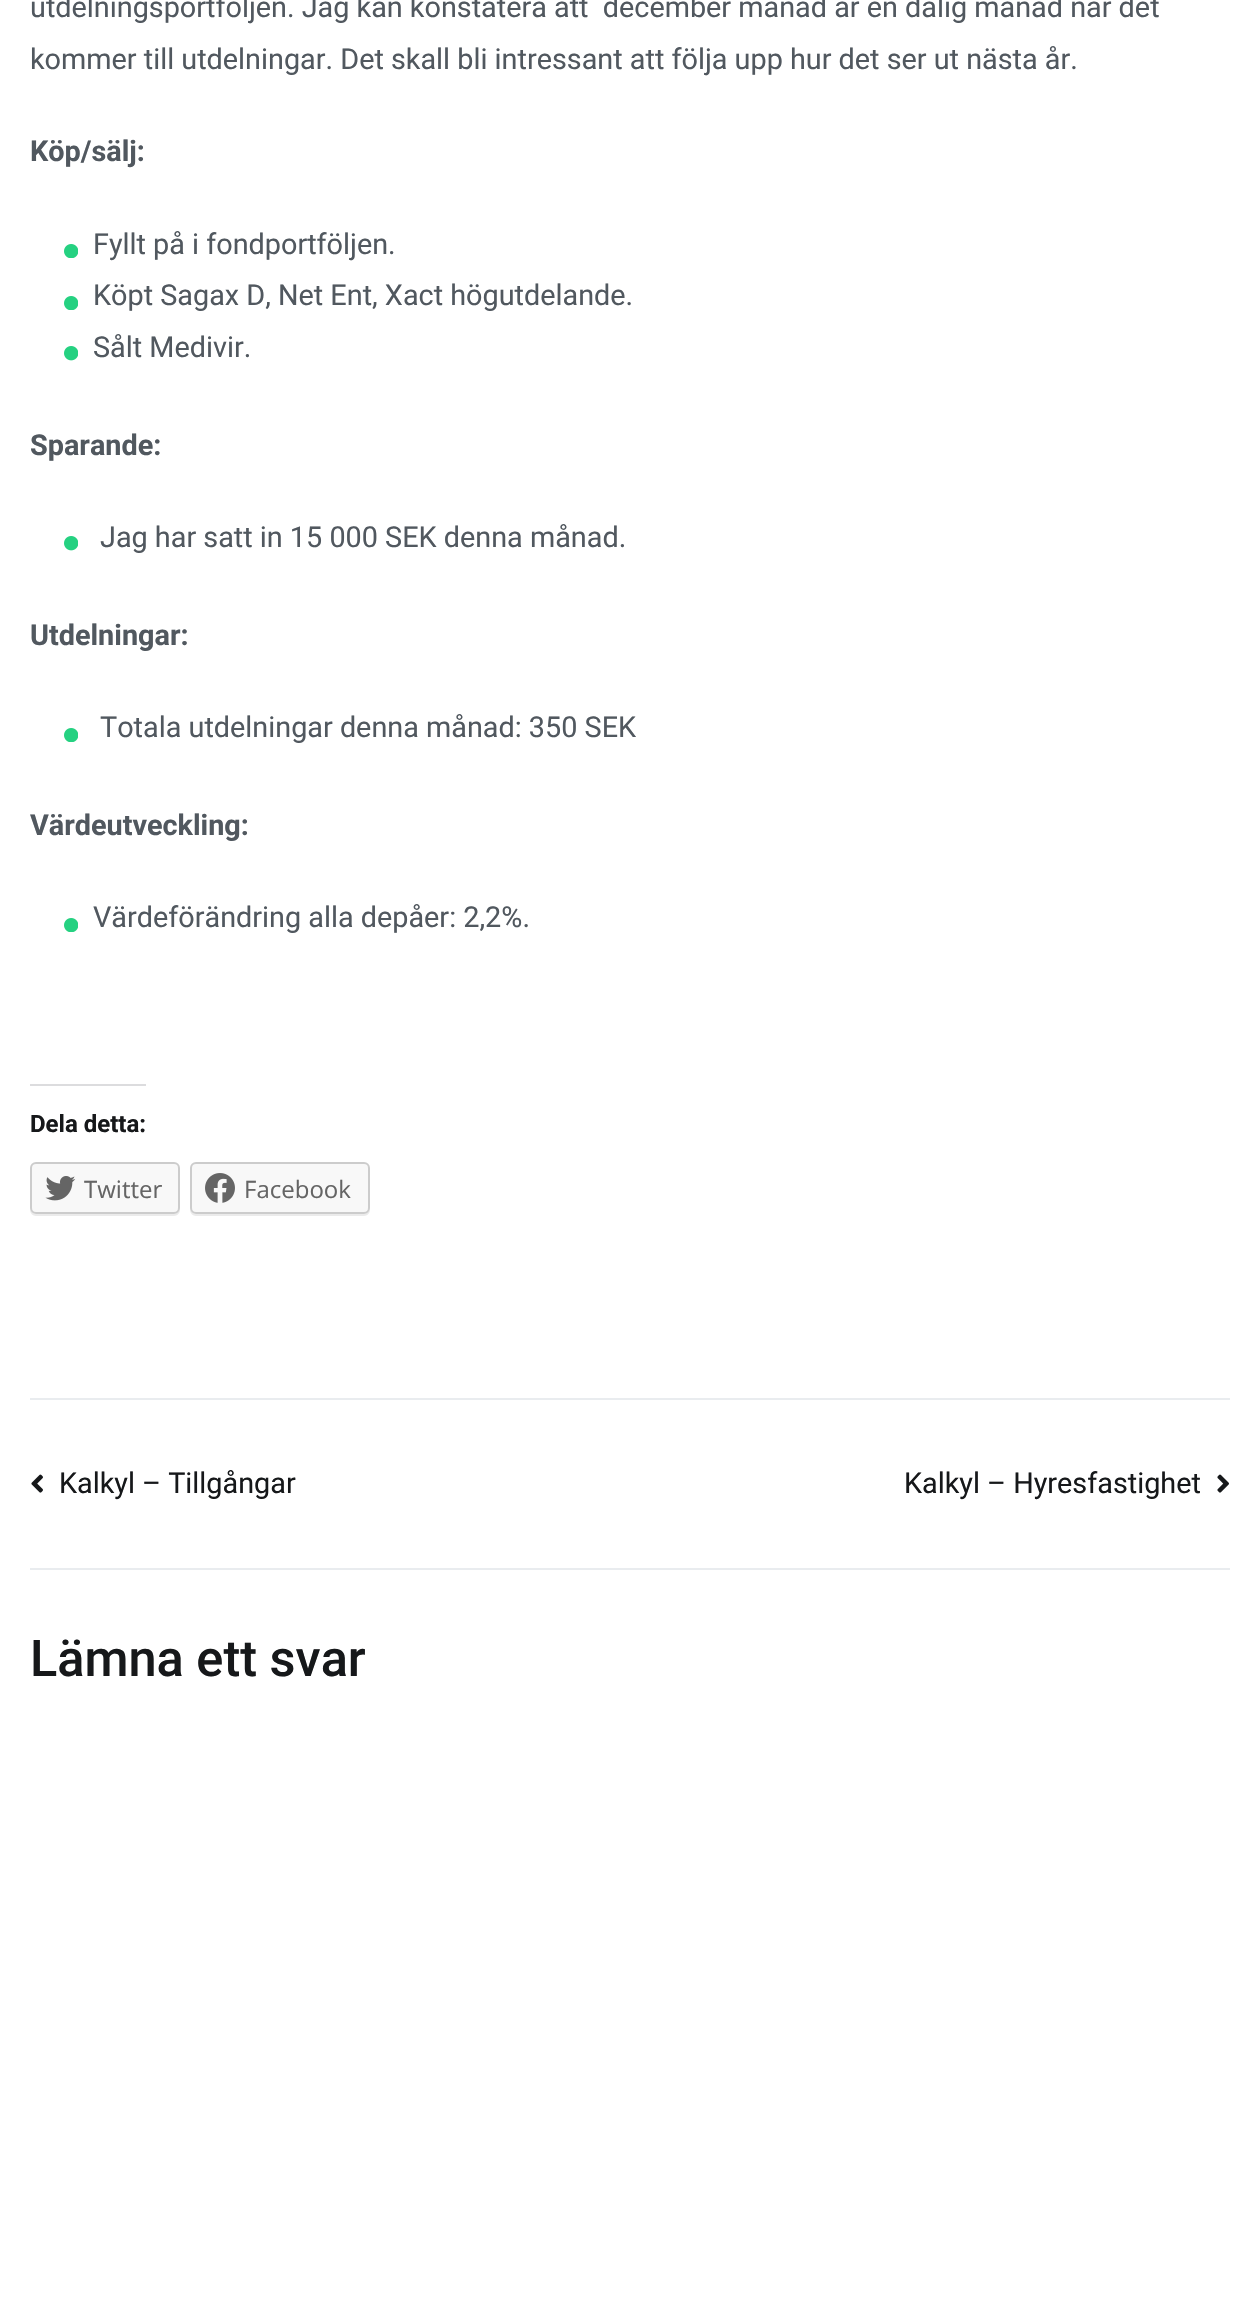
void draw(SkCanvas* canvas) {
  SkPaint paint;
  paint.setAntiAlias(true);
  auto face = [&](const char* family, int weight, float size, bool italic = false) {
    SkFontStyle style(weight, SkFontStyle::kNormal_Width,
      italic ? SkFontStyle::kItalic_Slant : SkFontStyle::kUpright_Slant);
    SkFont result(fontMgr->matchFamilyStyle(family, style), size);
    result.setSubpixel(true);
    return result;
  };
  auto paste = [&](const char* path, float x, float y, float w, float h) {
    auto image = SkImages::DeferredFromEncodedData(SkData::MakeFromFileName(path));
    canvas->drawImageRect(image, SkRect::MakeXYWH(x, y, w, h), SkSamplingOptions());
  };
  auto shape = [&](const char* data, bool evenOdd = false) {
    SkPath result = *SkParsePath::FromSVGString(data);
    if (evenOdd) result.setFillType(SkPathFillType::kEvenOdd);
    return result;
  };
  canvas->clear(0xffffffff);
  paste("img/1.png", 64, 244, 14, 14);
  paste("img/1.png", 64, 296, 14, 14);
  paste("img/2.png", 64, 346, 14, 15);
  paste("img/2.png", 64, 536, 14, 15);
  paste("img/1.png", 64, 728, 14, 14);
  paste("img/1.png", 64, 918, 14, 14);
  paint.setColor(0xffdcdcde);
  canvas->drawRect(SkRect::MakeXYWH(30, 1084, 116, 2), paint);
  paint.setColor(0xffebebeb);
  canvas->drawPath(shape("M30 1208V1210C30 1213 33 1216 36 1216H174C177 1216 180 1213 180 1210V1208C180 1211 177 1214 174 1214H36C33 1214 30 1211 30 1208Z"), paint);
  paint.setColor(0xfff8f8f8);
  canvas->drawRoundRect(SkRect::MakeXYWH(31, 1163, 148, 50), 5, 5, paint);
  paint.setStroke(true);
  paint.setStrokeWidth(2);
  paint.setColor(0xffcccccc);
  canvas->drawRoundRect(SkRect::MakeXYWH(31, 1163, 148, 50), 5, 5, paint);
  paste("img/3.png", 45, 1176, 31, 25);
  paint.setStroke(false);
  paint.setColor(0xffebebeb);
  canvas->drawPath(shape("M190 1208V1210C190 1213 193 1216 196 1216H364C367 1216 370 1213 370 1210V1208C370 1211 367 1214 364 1214H196C193 1214 190 1211 190 1208Z"), paint);
  paint.setColor(0xfff8f8f8);
  canvas->drawRoundRect(SkRect::MakeXYWH(191, 1163, 178, 50), 5, 5, paint);
  paint.setStroke(true);
  paint.setColor(0xffcccccc);
  canvas->drawRoundRect(SkRect::MakeXYWH(191, 1163, 178, 50), 5, 5, paint);
  paste("img/4.png", 205, 1173, 30, 30);
  paint.setStroke(false);
  paint.setColor(0xffe9ecef);
  canvas->drawRect(SkRect::MakeXYWH(30, 1398, 1200, 2), paint);
  paste("img/5.png", 31, 1474, 12, 19);
  paste("img/6.png", 1217, 1474, 12, 19);
  canvas->drawRect(SkRect::MakeXYWH(30, 1568, 1200, 2), paint);
  auto f0 = face("Roboto", 400, 28.8f);
  paint.setColor(0xff51585f);
  canvas->drawString("utdelningsportföljen. Jag kan konstatera att  december månad är en dålig månad när det", 30, 17, f0, paint);
  canvas->drawString("kommer till utdelningar. Det skall bli intressant att följa upp hur det ser ut nästa år.", 30, 69, f0, paint);
  auto f1 = face("Roboto", 700, 28.8f);
  canvas->drawString("Köp/sälj:", 30, 161, f1, paint);
  {
    const struct { const char* s; float x, y; } items[] = {
      {"Fyllt på i fondportföljen.", 93, 254},
      {"Köpt Sagax D, Net Ent, Xact högutdelande.", 93, 305},
      {"Sålt Medivir.", 93, 357},
    };
    for (auto [s, x, y] : items) {
      canvas->drawString(s, x, y, f0, paint);
    }
  }
  canvas->drawString("Sparande:", 30, 455, f1, paint);
  canvas->drawString("Jag har satt in 15 000 SEK denna månad.", 100, 547, f0, paint);
  canvas->drawString("Utdelningar:", 30, 645, f1, paint);
  canvas->drawString("Totala utdelningar denna månad: 350 SEK", 100, 737, f0, paint);
  canvas->drawString("Värdeutveckling:", 30, 835, f1, paint);
  canvas->drawString("Värdeförändring alla depåer: 2,2%.", 93, 927, f0, paint);
  auto f2 = face("Roboto", 700, 24);
  paint.setColor(0xff16181a);
  canvas->drawString("Dela detta:", 30, 1132, f2, paint);
  auto f3 = face("Open Sans", 400, 24);
  paint.setColor(0xff656565);
  canvas->drawString("Twitter", 84, 1198, f3, paint);
  canvas->drawString("Facebook", 244, 1198, f3, paint);
  paint.setColor(0xff16181a);
  canvas->drawString("Kalkyl – Tillgångar", 59, 1493, f0, paint);
  canvas->drawString("Kalkyl – Hyresfastighet", 904, 1493, f0, paint);
  auto f4 = face("Roboto", 500, 50.5f);
  canvas->drawString("Lämna ett svar", 30, 1676, f4, paint);
}
